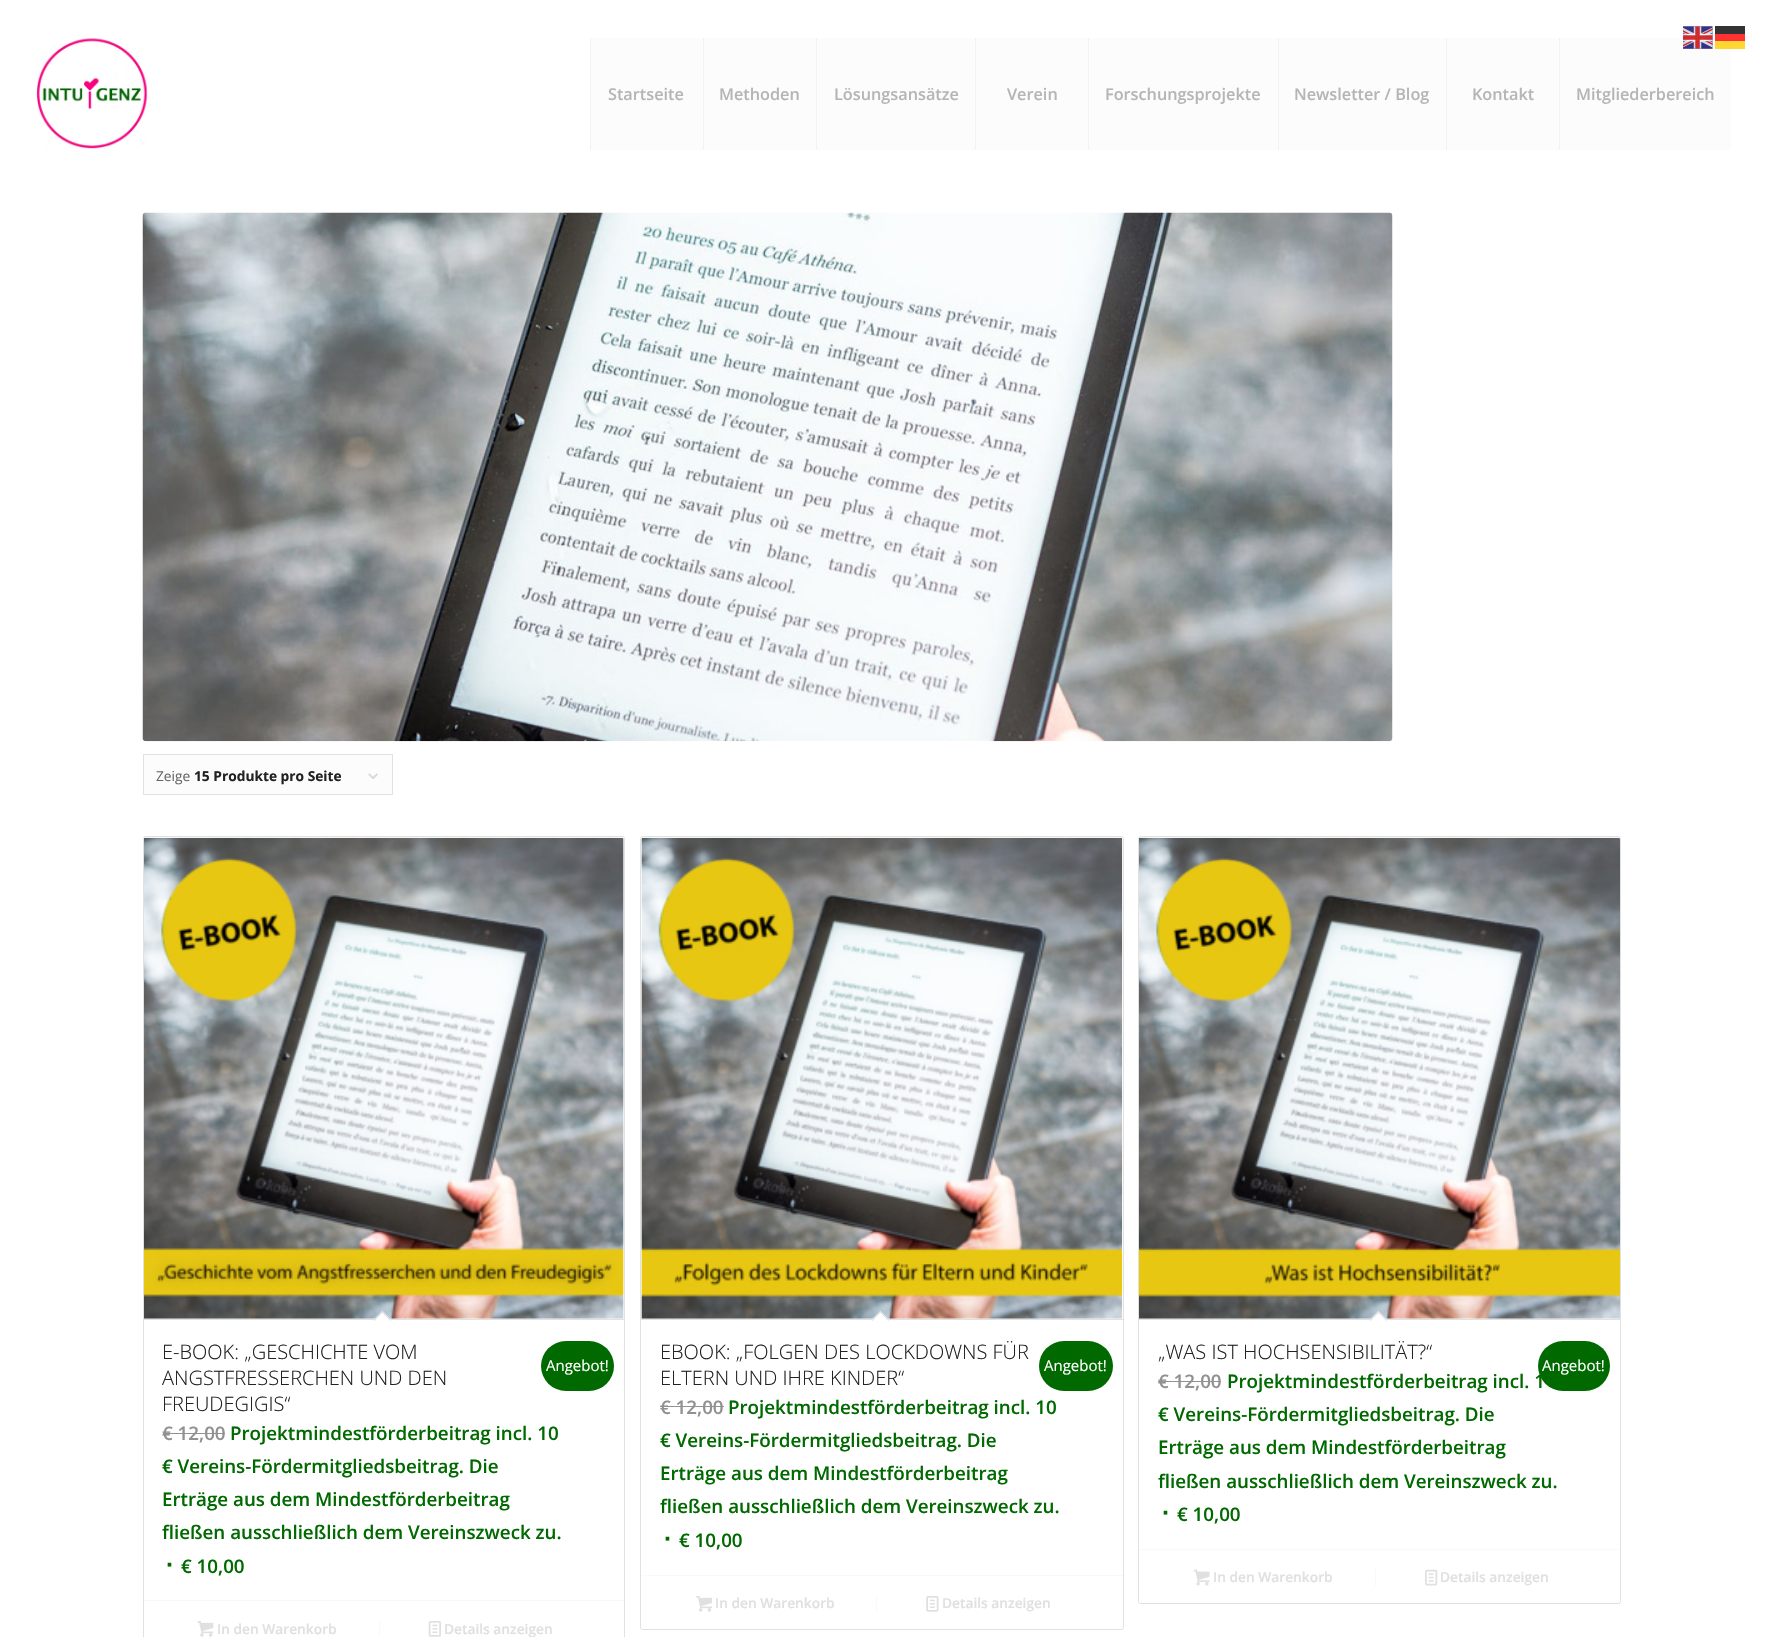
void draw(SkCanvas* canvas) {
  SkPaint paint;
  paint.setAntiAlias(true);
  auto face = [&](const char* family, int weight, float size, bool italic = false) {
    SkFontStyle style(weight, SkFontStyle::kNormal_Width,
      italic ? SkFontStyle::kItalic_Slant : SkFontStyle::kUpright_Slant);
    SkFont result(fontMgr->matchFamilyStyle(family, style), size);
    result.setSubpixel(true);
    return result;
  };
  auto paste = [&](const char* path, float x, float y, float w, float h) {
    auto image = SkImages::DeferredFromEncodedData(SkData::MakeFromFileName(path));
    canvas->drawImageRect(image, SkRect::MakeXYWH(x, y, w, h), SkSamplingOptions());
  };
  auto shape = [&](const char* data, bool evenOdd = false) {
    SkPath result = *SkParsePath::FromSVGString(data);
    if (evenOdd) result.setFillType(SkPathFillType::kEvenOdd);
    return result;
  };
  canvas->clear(0xffffffff);
  paint.setColor(0xffff3333);
  canvas->drawRect(SkRect::MakeXYWH(1715, 34, 30, 7), paint);
  paint.setColor(0xfffcfcfc);
  canvas->drawRect(SkRect::MakeXYWH(1560, 38, 171, 112), paint);
  paste("img/1.png", 1683, 26, 30, 23);
  paint.setColor(0xff333333);
  canvas->drawRect(SkRect::MakeXYWH(1715, 26, 30, 8), paint);
  paint.setColor(0xffffd633);
  canvas->drawRect(SkRect::MakeXYWH(1731, 41, 14, 8), paint);
  paste("img/2.png", 36, 38, 112, 111);
  {
    const struct { float x, y, w, h; SkColor color; } items[] = {
      {591, 38, 112, 112, 0xfffcfcfc},
      {590, 38, 1, 112, 0xfff2f2f2},
      {704, 38, 112, 112, 0xfffcfcfc},
      {703, 38, 1, 112, 0xfff2f2f2},
      {817, 38, 158, 112, 0xfffcfcfc},
      {816, 38, 1, 112, 0xfff2f2f2},
      {976, 38, 112, 112, 0xfffcfcfc},
      {975, 38, 1, 112, 0xfff2f2f2},
      {1089, 38, 189, 112, 0xfffcfcfc},
      {1088, 38, 1, 112, 0xfff2f2f2},
      {1279, 38, 167, 112, 0xfffcfcfc},
      {1278, 38, 1, 112, 0xfff2f2f2},
      {1447, 38, 112, 112, 0xfffcfcfc},
      {1446, 38, 1, 112, 0xfff2f2f2},
      {1715, 38, 16, 3, 0xfffe3232},
      {1715, 41, 16, 8, 0xfffed632},
      {1559, 38, 1, 112, 0xfff2f2f2},
    };
    for (auto [x, y, w, h, color] : items) {
      paint.setColor(color);
      canvas->drawRect(SkRect::MakeXYWH(x, y, w, h), paint);
    }
  }
  paste("img/3.png", 142, 212, 1251, 530);
  paint.setColor(0xfffcfcfc);
  canvas->drawRect(SkRect::MakeXYWH(144, 755, 248, 39), paint);
  paste("img/4.png", 368, 773, 10, 6);
  paint.setStroke(true);
  paint.setStrokeWidth(1);
  paint.setColor(0xffe1e1e1);
  canvas->drawRect(SkRect::MakeXYWH(143.5f, 754.5f, 249, 40), paint);
  canvas->drawRoundRect(SkRect::MakeXYWH(143.5f, 836.5f, 481, 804), 2, 2, paint);
  paste("img/5.png", 144, 837, 480, 482);
  paint.setStroke(false);
  canvas->drawRect(SkRect::MakeXYWH(144, 1319, 480, 1), paint);
  paint.setColor(0xffffffff);
  canvas->drawPath(shape("M382.5 1311L391 1320L382.5 1329L373.5 1320Z"), paint);
  paint.setColor(0xffe1e1e1);
  canvas->drawPath(shape("M382.5 1311L391 1320L390.5 1321L381.5 1312Z"), paint);
  canvas->drawPath(shape("M382.5 1311L383 1312L374.5 1321L373.5 1320Z"), paint);
  paint.setColor(0xff006900);
  canvas->drawRoundRect(SkRect::MakeXYWH(541, 1341, 73, 50), 25, 25, paint);
  paint.setColor(0xff919191);
  canvas->drawRect(SkRect::MakeXYWH(163, 1433, 62, 1), paint);
  paint.setColor(0xfff9f9f9);
  canvas->drawRect(SkRect::MakeXYWH(144, 1600, 480, 1), paint);
  paste("img/6.png", 197, 1621, 17, 16);
  canvas->drawRect(SkRect::MakeXYWH(379, 1620, 1, 17), paint);
  paste("img/7.png", 428, 1621, 13, 16);
  paint.setStroke(true);
  paint.setColor(0xffe1e1e1);
  canvas->drawRoundRect(SkRect::MakeXYWH(640.5f, 836.5f, 483, 793), 2, 2, paint);
  paste("img/8.png", 641, 837, 482, 482);
  paint.setStroke(false);
  canvas->drawRect(SkRect::MakeXYWH(641, 1319, 482, 1), paint);
  paint.setColor(0xffffffff);
  canvas->drawPath(shape("M880.5 1311L889 1320L880.5 1329L871.5 1320Z"), paint);
  paint.setColor(0xffe1e1e1);
  canvas->drawPath(shape("M880.5 1311L889 1320L888.5 1321L879.5 1312Z"), paint);
  canvas->drawPath(shape("M880.5 1311L881 1312L872.5 1321L871.5 1320Z"), paint);
  paint.setColor(0xff006900);
  canvas->drawRoundRect(SkRect::MakeXYWH(1039, 1341, 74, 50), 25, 25, paint);
  paint.setColor(0xff919191);
  canvas->drawRect(SkRect::MakeXYWH(660, 1406, 64, 1), paint);
  paint.setColor(0xfff9f9f9);
  canvas->drawRect(SkRect::MakeXYWH(641, 1575, 482, 1), paint);
  paste("img/9.png", 696, 1596, 16, 16);
  canvas->drawRect(SkRect::MakeXYWH(876, 1595, 1, 18), paint);
  paste("img/10.png", 926, 1596, 13, 16);
  paint.setStroke(true);
  paint.setColor(0xffe1e1e1);
  canvas->drawRoundRect(SkRect::MakeXYWH(1138.5f, 836.5f, 482, 767), 2, 2, paint);
  paste("img/11.png", 1139, 837, 481, 482);
  paint.setStroke(false);
  canvas->drawRect(SkRect::MakeXYWH(1139, 1319, 481, 1), paint);
  paint.setColor(0xffffffff);
  canvas->drawPath(shape("M1378.5 1311L1387 1320L1378.5 1329L1369.5 1320Z"), paint);
  paint.setColor(0xffe1e1e1);
  canvas->drawPath(shape("M1378.5 1311L1387 1320L1386.5 1321L1377.5 1312Z"), paint);
  canvas->drawPath(shape("M1378.5 1311L1379.5 1312L1370.5 1321L1369.5 1320Z"), paint);
  paint.setColor(0xff006900);
  canvas->drawRoundRect(SkRect::MakeXYWH(1538, 1341, 72, 50), 25, 25, paint);
  paint.setColor(0xff919191);
  canvas->drawRect(SkRect::MakeXYWH(1158, 1381, 63, 1), paint);
  paint.setColor(0xfff9f9f9);
  canvas->drawRect(SkRect::MakeXYWH(1139, 1549, 481, 1), paint);
  paste("img/12.png", 1193, 1569, 17, 17);
  canvas->drawRect(SkRect::MakeXYWH(1375, 1569, 1, 17), paint);
  paste("img/13.png", 1425, 1569, 13, 17);
  auto f0 = face("Open Sans", 600, 16.25f);
  paint.setColor(0xffb5b5b5);
  {
    const struct { const char* s; float x, y; } items[] = {
      {"Startseite", 608, 100},
      {"Methoden", 719, 100},
      {"Lösungsansätze", 834, 100},
      {"Verein", 1007, 100},
      {"Forschungsprojekte", 1105, 100},
      {"Newsletter / Blog", 1294, 100},
      {"Kontakt", 1472, 100},
      {"Mitgliederbereich", 1576, 100},
    };
    for (auto [s, x, y] : items) {
      canvas->drawString(s, x, y, f0, paint);
    }
  }
  auto f1 = face("Open Sans", 400, 13.75f);
  paint.setColor(0xff666666);
  canvas->drawString("Zeige", 156, 781, f1, paint);
  auto f2 = face("Open Sans", 700, 13.75f);
  paint.setColor(0xff222222);
  canvas->drawString("15 Produkte pro Seite", 194, 781, f2, paint);
  auto f3 = face("Open Sans", 300, 20);
  {
    const struct { const char* s; float x, y; } items[] = {
      {"E-BOOK: „GESCHICHTE VOM", 162, 1359},
      {"ANGSTFRESSERCHEN UND DEN", 162, 1385},
      {"FREUDEGIGIS“", 162, 1411},
    };
    for (auto [s, x, y] : items) {
      canvas->drawString(s, x, y, f3, paint);
    }
  }
  auto f4 = face("Open Sans", 400, 15);
  paint.setColor(0xffffffff);
  canvas->drawString("Angebot!", 546, 1371, f4, paint);
  auto f5 = face("Open Sans", 600, 18.75f);
  paint.setColor(0xff919191);
  canvas->drawString("€ 12,00", 162, 1440, f5, paint);
  paint.setColor(0xff006900);
  {
    const struct { const char* s; float x, y; } items[] = {
      {"Projektmindestförderbeitrag incl. 10", 230, 1440},
      {"€ Vereins-Fördermitgliedsbeitrag. Die", 162, 1473},
      {"Erträge aus dem Mindestförderbeitrag", 162, 1506},
      {"fließen ausschließlich dem Vereinszweck zu.", 162, 1539},
    };
    for (auto [s, x, y] : items) {
      canvas->drawString(s, x, y, f5, paint);
    }
  }
  auto f6 = face("Liberation Sans", 700, 25);
  canvas->drawString("∙", 166, 1573, f6, paint);
  canvas->drawString("€ 10,00", 181, 1573, f5, paint);
  auto f7 = face("Open Sans", 600, 13.75f);
  paint.setColor(0xffe0e0e0);
  canvas->drawString("In den Warenkorb", 217, 1634, f7, paint);
  canvas->drawString("Details anzeigen", 444, 1634, f7, paint);
  paint.setColor(0xff222222);
  canvas->drawString("EBOOK: „FOLGEN DES LOCKDOWNS FÜR", 660, 1359, f3, paint);
  canvas->drawString("ELTERN UND IHRE KINDER“", 660, 1385, f3, paint);
  paint.setColor(0xffffffff);
  canvas->drawString("Angebot!", 1044, 1371, f4, paint);
  paint.setColor(0xff919191);
  canvas->drawString("€ 12,00", 660, 1414, f5, paint);
  paint.setColor(0xff006900);
  {
    const struct { const char* s; float x, y; } items[] = {
      {"Projektmindestförderbeitrag incl. 10", 728, 1414},
      {"€ Vereins-Fördermitgliedsbeitrag. Die", 660, 1447},
      {"Erträge aus dem Mindestförderbeitrag", 660, 1480},
      {"fließen ausschließlich dem Vereinszweck zu.", 660, 1513},
    };
    for (auto [s, x, y] : items) {
      canvas->drawString(s, x, y, f5, paint);
    }
  }
  canvas->drawString("∙", 664, 1547, f6, paint);
  canvas->drawString("€ 10,00", 679, 1547, f5, paint);
  paint.setColor(0xffe0e0e0);
  canvas->drawString("In den Warenkorb", 715, 1608, f7, paint);
  canvas->drawString("Details anzeigen", 942, 1608, f7, paint);
  paint.setColor(0xff222222);
  canvas->drawString("„WAS IST HOCHSENSIBILITÄT?“", 1158, 1359, f3, paint);
  paint.setColor(0xffffffff);
  canvas->drawString("Angebot!", 1542, 1371, f4, paint);
  paint.setColor(0xff919191);
  canvas->drawString("€ 12,00", 1158, 1388, f5, paint);
  paint.setColor(0xff006900);
  {
    const struct { const char* s; float x, y; } items[] = {
      {"Projektmindestförderbeitrag incl. 1", 1227, 1388},
      {"€ Vereins-Fördermitgliedsbeitrag. Die", 1158, 1421},
      {"Erträge aus dem Mindestförderbeitrag", 1158, 1454},
      {"fließen ausschließlich dem Vereinszweck zu.", 1158, 1488},
    };
    for (auto [s, x, y] : items) {
      canvas->drawString(s, x, y, f5, paint);
    }
  }
  canvas->drawString("∙", 1162, 1521, f6, paint);
  canvas->drawString("€ 10,00", 1177, 1521, f5, paint);
  paint.setColor(0xffe0e0e0);
  canvas->drawString("In den Warenkorb", 1213, 1582, f7, paint);
  canvas->drawString("Details anzeigen", 1440, 1582, f7, paint);
}
